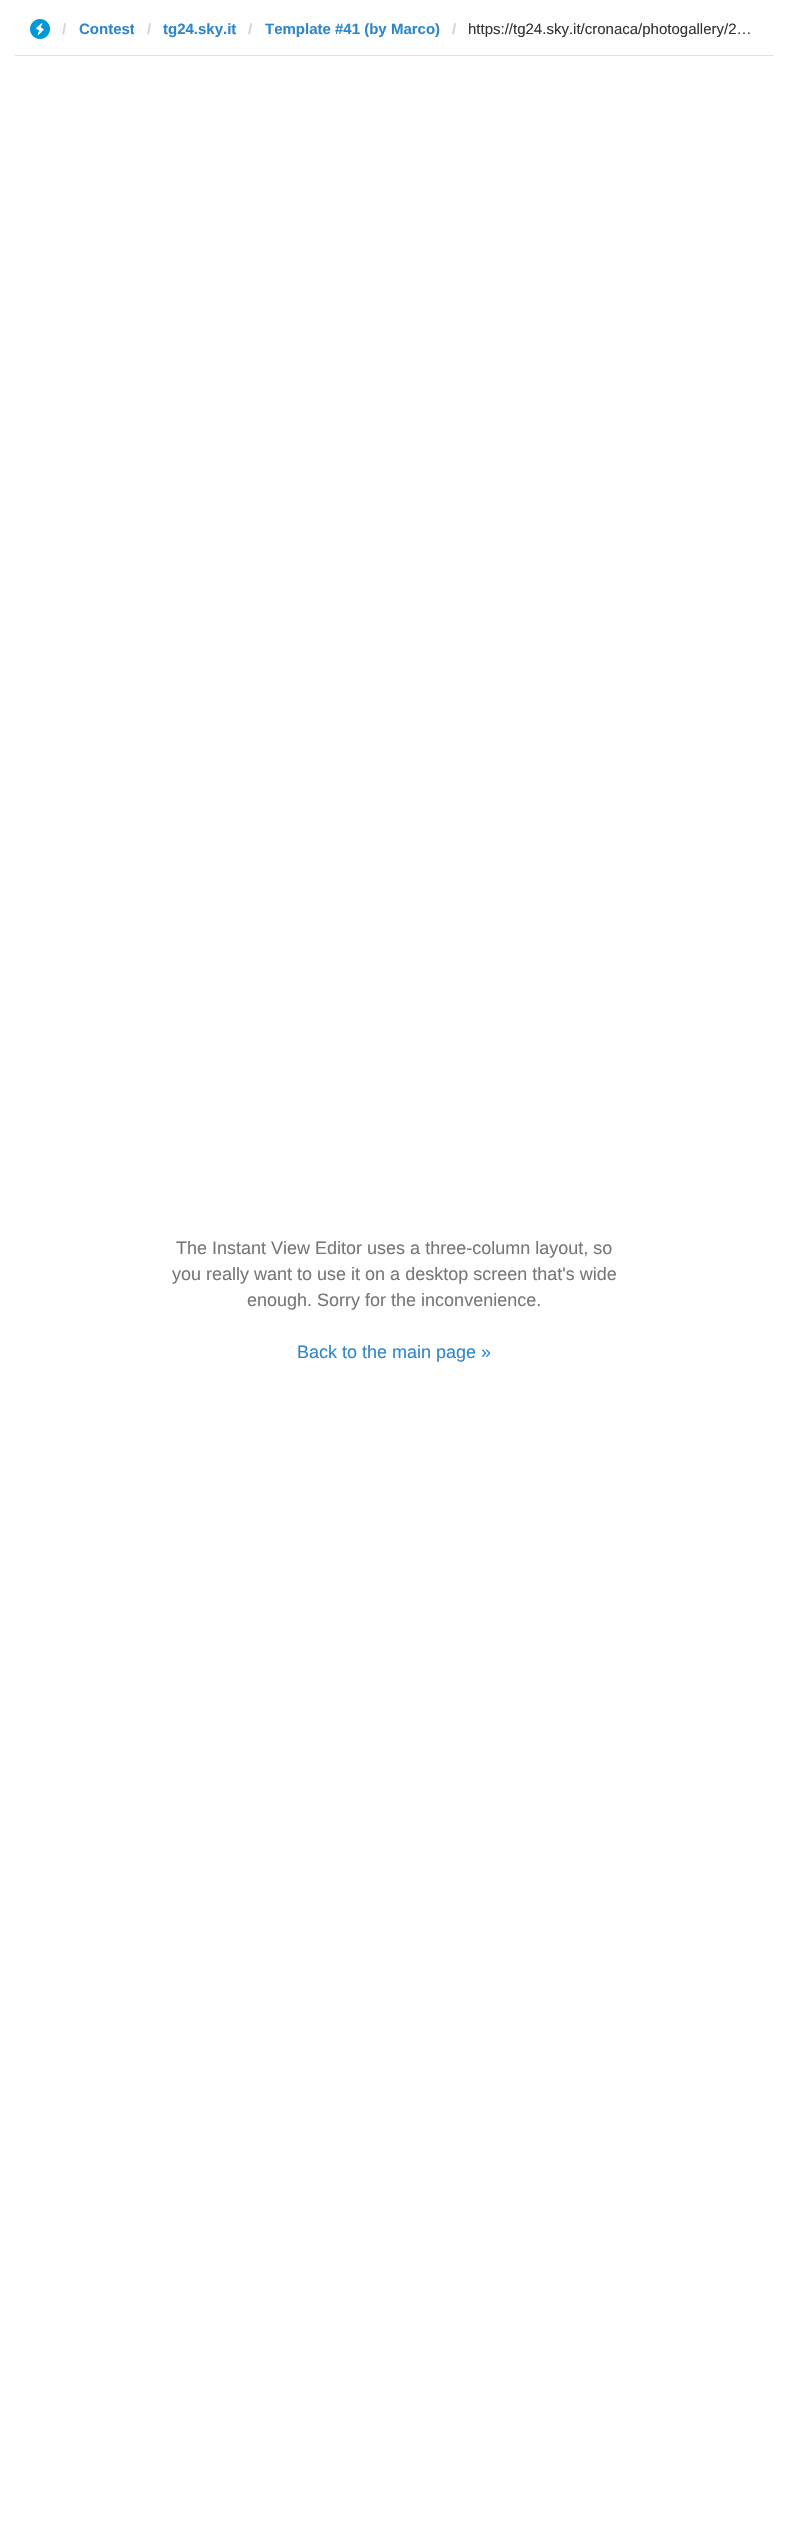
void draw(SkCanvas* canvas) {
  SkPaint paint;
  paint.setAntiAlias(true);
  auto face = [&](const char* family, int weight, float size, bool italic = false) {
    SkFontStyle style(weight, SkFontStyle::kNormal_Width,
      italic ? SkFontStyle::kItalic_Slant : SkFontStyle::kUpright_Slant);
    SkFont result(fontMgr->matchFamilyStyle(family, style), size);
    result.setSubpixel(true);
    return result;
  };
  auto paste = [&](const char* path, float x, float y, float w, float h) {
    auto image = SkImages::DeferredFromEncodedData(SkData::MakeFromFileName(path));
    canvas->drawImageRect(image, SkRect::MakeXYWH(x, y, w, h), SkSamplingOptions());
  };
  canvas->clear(0xffffffff);
  paint.setColor(0xffe0e0e0);
  canvas->drawRect(SkRect::MakeXYWH(15, 55, 758, 1), paint);
  paste("img/1.png", 30, 19, 20, 20);
  auto f0 = face("Liberation Sans", 700, 15);
  paint.setColor(0xffd4d4d4);
  canvas->drawString("/", 62, 34, f0, paint);
  canvas->save();
  canvas->clipRect(SkRect::MakeXYWH(79, 19, 55, 20));
  paint.setColor(0xff2e87ca);
  canvas->drawString("Contest", 79, 34, f0, paint);
  canvas->restore();
  paint.setColor(0xffd4d4d4);
  canvas->drawString("/", 147, 34, f0, paint);
  paint.setColor(0xff2e87ca);
  canvas->drawString("tg24.sky.it", 163, 34, f0, paint);
  paint.setColor(0xffd4d4d4);
  canvas->drawString("/", 248, 34, f0, paint);
  paint.setColor(0xff2e87ca);
  canvas->drawString("Template #41 (by Marco)", 265, 34, f0, paint);
  paint.setColor(0xffd4d4d4);
  canvas->drawString("/", 452, 34, f0, paint);
  auto f1 = face("Liberation Sans", 400, 15);
  paint.setColor(0xff333333);
  canvas->drawString("https://tg24.sky.it/cronaca/photogallery/2…", 468, 34, f1, paint);
  auto f2 = face("Liberation Sans", 400, 18);
  paint.setColor(0xff777777);
  {
    const struct { const char* s; float x, y; } items[] = {
      {"The Instant View Editor uses a three-column layout, so", 176, 1254},
      {"you really want to use it on a desktop screen that's wide", 172, 1280},
      {"enough. Sorry for the inconvenience.", 247, 1306},
    };
    for (auto [s, x, y] : items) {
      canvas->drawString(s, x, y, f2, paint);
    }
  }
  paint.setColor(0xff2e87ca);
  canvas->drawString("Back to the main page »", 297, 1358, f2, paint);
}
